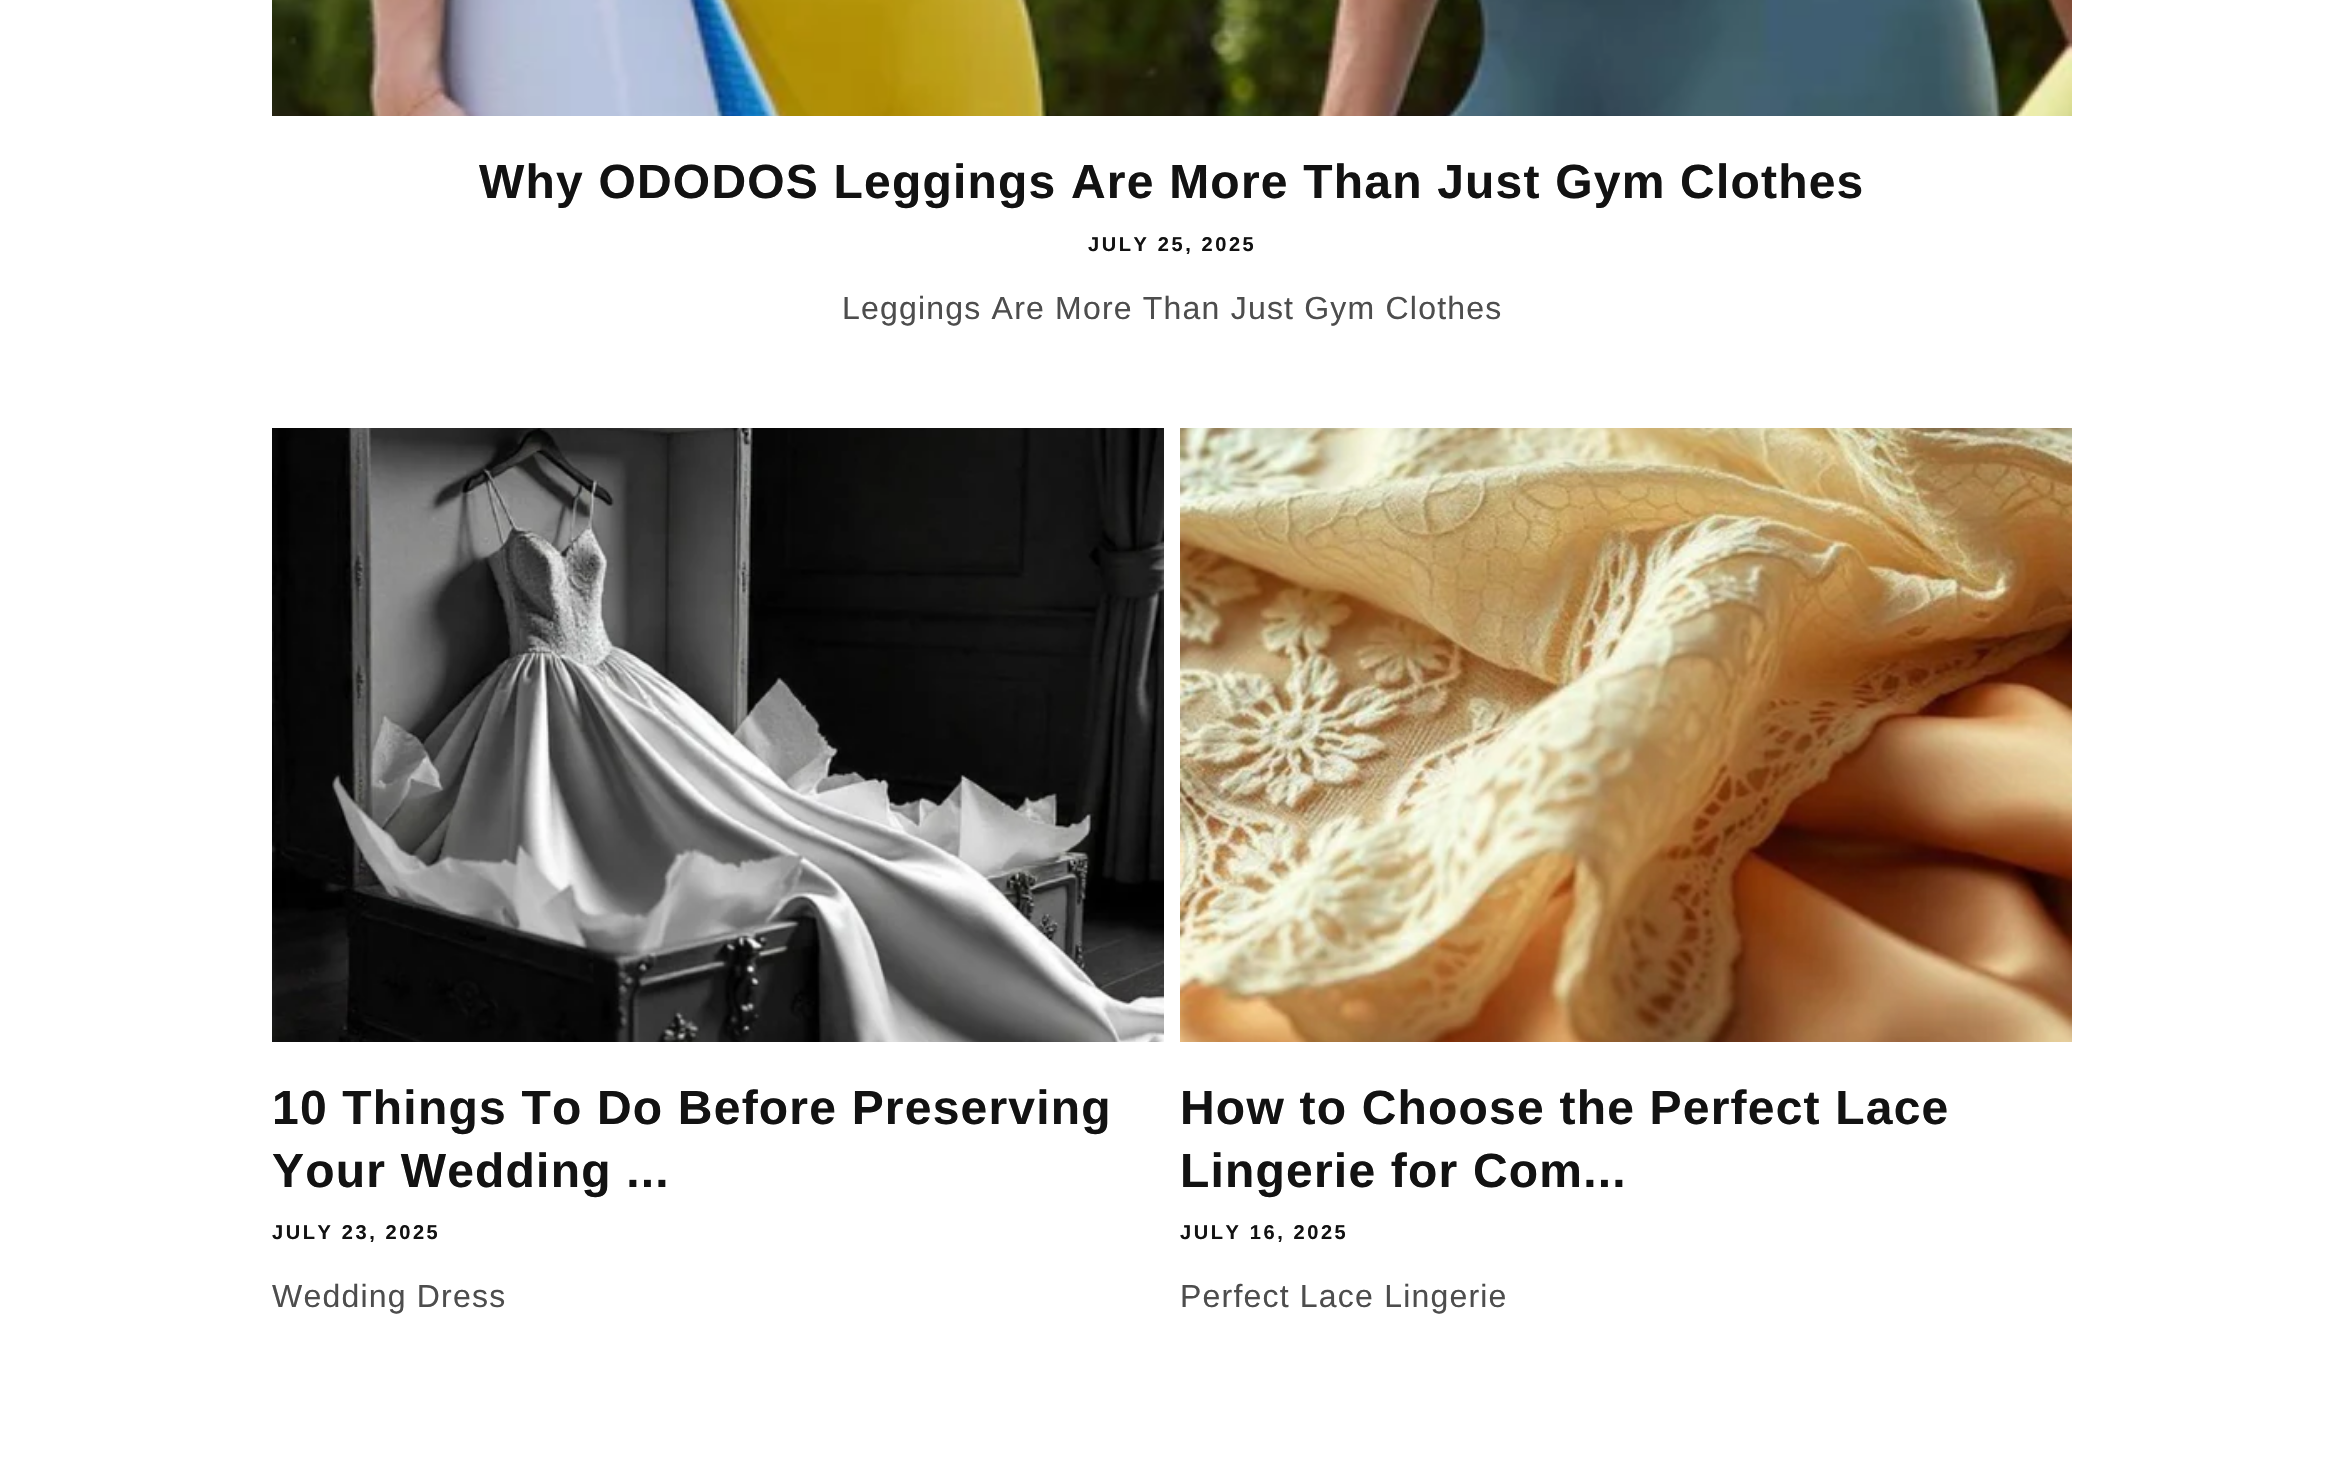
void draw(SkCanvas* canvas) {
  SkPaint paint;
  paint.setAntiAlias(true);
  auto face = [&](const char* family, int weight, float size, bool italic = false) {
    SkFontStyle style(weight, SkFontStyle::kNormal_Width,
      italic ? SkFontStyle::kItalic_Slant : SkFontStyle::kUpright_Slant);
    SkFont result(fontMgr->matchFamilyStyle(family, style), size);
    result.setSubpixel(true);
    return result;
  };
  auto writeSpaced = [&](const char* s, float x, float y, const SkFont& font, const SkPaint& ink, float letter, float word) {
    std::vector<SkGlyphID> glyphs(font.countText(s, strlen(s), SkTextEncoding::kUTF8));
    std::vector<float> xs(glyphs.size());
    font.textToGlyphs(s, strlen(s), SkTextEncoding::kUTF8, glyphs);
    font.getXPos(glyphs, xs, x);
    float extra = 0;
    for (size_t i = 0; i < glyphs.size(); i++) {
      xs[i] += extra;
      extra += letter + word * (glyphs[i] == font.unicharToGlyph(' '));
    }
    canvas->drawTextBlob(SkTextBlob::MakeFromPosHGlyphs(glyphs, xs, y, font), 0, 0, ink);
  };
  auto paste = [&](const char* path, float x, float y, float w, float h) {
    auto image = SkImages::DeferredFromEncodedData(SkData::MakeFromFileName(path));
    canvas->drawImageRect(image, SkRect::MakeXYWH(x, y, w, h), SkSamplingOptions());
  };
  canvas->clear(0xffffffff);
  paste("img/1.png", 272, 0, 1800, 116);
  paste("img/2.png", 272, 428, 892, 614);
  paste("img/3.png", 1180, 428, 892, 614);
  auto f0 = face("Liberation Sans", 700, 48);
  paint.setColor(0xff121212);
  writeSpaced("Why ODODOS Leggings Are More Than Just Gym Clothes", 479, 198, f0, paint, 1.2f, 0);
  auto f1 = face("Liberation Sans", 700, 20);
  writeSpaced("JULY 25, 2025", 1088, 251, f1, paint, 2.6f, 0);
  auto f2 = face("Liberation Sans", 400, 32);
  paint.setColor(0xff4d4d4d);
  writeSpaced("Leggings Are More Than Just Gym Clothes", 842, 319, f2, paint, 1.2f, 0);
  paint.setColor(0xff121212);
  writeSpaced("10 Things To Do Before Preserving", 272, 1124, f0, paint, 1.2f, 0);
  writeSpaced("Your Wedding ...", 272, 1187, f0, paint, 1.2f, 0);
  writeSpaced("JULY 23, 2025", 272, 1239, f1, paint, 2.6f, 0);
  paint.setColor(0xff4d4d4d);
  writeSpaced("Wedding Dress", 272, 1307, f2, paint, 1.2f, 0);
  paint.setColor(0xff121212);
  writeSpaced("How to Choose the Perfect Lace", 1180, 1124, f0, paint, 1.2f, 0);
  writeSpaced("Lingerie for Com...", 1180, 1187, f0, paint, 1.2f, 0);
  writeSpaced("JULY 16, 2025", 1180, 1239, f1, paint, 2.6f, 0);
  paint.setColor(0xff4d4d4d);
  writeSpaced("Perfect Lace Lingerie", 1180, 1307, f2, paint, 1.2f, 0);
}
